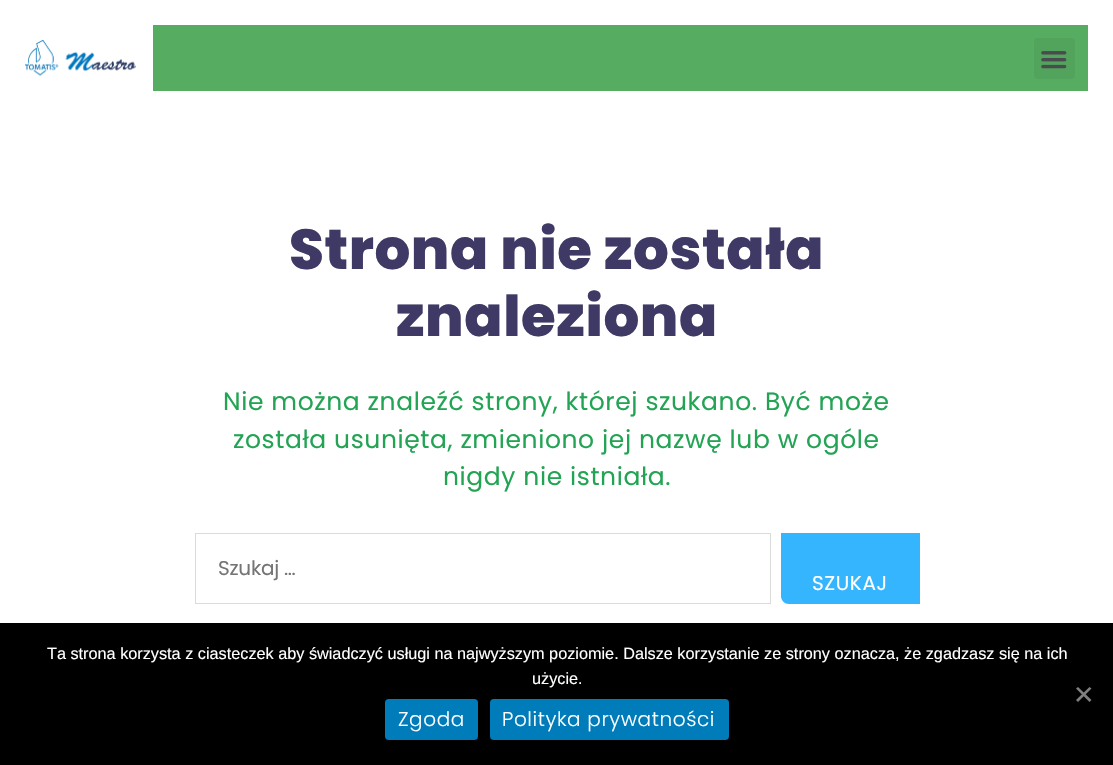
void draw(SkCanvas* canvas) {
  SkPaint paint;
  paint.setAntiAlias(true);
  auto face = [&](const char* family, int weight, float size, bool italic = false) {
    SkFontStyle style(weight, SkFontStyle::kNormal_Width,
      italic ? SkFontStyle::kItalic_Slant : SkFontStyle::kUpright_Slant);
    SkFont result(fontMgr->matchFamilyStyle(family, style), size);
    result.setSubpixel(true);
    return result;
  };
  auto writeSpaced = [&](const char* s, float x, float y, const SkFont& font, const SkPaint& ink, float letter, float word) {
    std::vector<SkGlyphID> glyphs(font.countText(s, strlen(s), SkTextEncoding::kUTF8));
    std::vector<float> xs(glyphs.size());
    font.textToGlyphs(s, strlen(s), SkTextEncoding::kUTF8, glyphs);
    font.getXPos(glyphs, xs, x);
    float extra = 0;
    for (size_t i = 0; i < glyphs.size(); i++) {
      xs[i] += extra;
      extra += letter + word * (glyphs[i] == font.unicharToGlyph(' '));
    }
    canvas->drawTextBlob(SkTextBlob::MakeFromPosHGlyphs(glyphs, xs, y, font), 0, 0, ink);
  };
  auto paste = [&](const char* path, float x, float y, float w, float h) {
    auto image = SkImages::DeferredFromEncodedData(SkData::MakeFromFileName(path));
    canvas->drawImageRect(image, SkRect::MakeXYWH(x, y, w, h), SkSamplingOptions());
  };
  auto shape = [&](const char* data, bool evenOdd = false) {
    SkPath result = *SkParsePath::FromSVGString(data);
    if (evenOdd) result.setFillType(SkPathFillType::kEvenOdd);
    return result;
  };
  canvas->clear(0xffffffff);
  paste("img/1.png", 25, 40, 111, 36);
  paint.setColor(0xff56ad62);
  canvas->drawRect(SkRect::MakeXYWH(153, 25, 935, 66), paint);
  paint.setColor(0xff52a45d);
  canvas->drawRoundRect(SkRect::MakeXYWH(1034, 38, 41, 41), 4, 4, paint);
  paste("img/2.png", 1041, 51, 26, 18);
  paint.setStroke(true);
  paint.setStrokeWidth(1);
  paint.setColor(0xffdbdbdb);
  canvas->drawRect(SkRect::MakeXYWH(195.5f, 533.5f, 575, 70), paint);
  paint.setStroke(false);
  paint.setColor(0xff36b5ff);
  canvas->drawPath(shape("M781 533H920V604H789C784.5 604 781 600.5 781 596Z"), paint);
  paint.setColor(0xff000000);
  canvas->drawRect(SkRect::MakeXYWH(0, 623, 1113, 142), paint);
  paint.setColor(0xff808080);
  canvas->drawPath(shape("M1089.5 687L1091.5 688.5L1078 702L1076 700Z"), paint);
  canvas->drawPath(shape("M1076 688.5L1078 687L1091.5 700L1089.5 702Z"), paint);
  paint.setColor(0xff007cba);
  canvas->drawRoundRect(SkRect::MakeXYWH(385, 699, 93, 41), 4, 4, paint);
  canvas->drawRoundRect(SkRect::MakeXYWH(490, 699, 239, 41), 4, 4, paint);
  auto f0 = face("Poppins", 800, 56.25f);
  paint.setColor(0xff3f3a65);
  writeSpaced("Strona nie została", 289, 269, f0, paint, 0.6f, 0);
  writeSpaced("znaleziona", 396, 336, f0, paint, 0.6f, 0);
  auto f1 = face("Poppins", 400, 25);
  paint.setColor(0xff23a455);
  {
    const struct { const char* s; float x, y; } items[] = {
      {"Nie można znaleźć strony, której szukano. Być może", 223, 410},
      {"została usunięta, zmieniono jej nazwę lub w ogóle", 233, 448},
      {"nigdy nie istniała.", 443, 485},
    };
    for (auto [s, x, y] : items) {
      writeSpaced(s, x, y, f1, paint, 0.6f, 0);
    }
  }
  auto f2 = face("Poppins", 400, 20);
  paint.setColor(0xff757575);
  writeSpaced("Szukaj …", 218, 575, f2, paint, -0.25f, 0);
  paint.setColor(0xffffffff);
  writeSpaced("SZUKAJ", 812, 590, f2, paint, 0.6f, 0);
  auto f3 = face("Liberation Sans", 400, 16.25f);
  canvas->drawString("Ta strona korzysta z ciasteczek aby świadczyć usługi na najwyższym poziomie. Dalsze korzystanie ze strony oznacza, że zgadzasz się na ich", 47, 659, f3, paint);
  canvas->drawString("użycie.", 532, 684, f3, paint);
  auto f4 = face("Poppins", 300, 20);
  writeSpaced("Zgoda", 398, 726, f4, paint, 0.6f, 0);
  writeSpaced("Polityka prywatności", 502, 726, f4, paint, 0.6f, 0);
}
